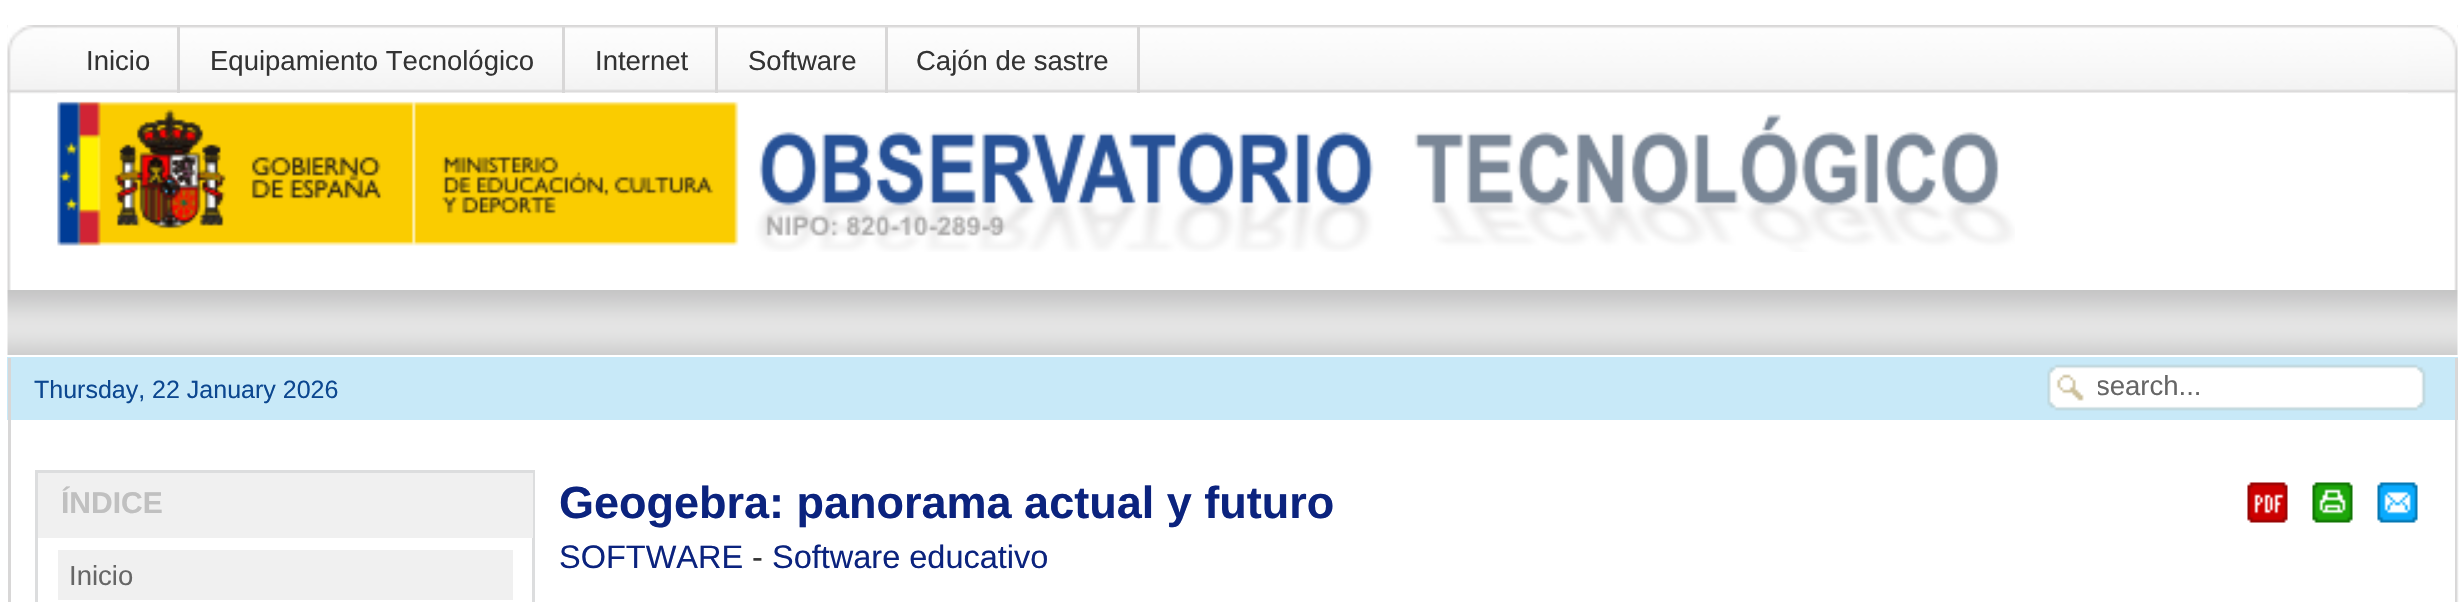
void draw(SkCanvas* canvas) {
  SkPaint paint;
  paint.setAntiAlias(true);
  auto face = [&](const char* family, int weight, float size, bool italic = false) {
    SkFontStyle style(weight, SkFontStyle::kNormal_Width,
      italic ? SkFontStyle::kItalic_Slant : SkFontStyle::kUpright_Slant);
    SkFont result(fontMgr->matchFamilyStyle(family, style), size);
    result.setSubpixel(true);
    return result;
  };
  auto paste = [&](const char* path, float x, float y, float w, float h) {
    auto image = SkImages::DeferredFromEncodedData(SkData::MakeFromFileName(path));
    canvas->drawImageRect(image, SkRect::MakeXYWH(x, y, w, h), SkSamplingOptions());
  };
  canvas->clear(0xffffffff);
  paste("img/1.png", 7, 25, 2451, 68);
  paste("img/2.png", 7, 25, 50, 265);
  {
    const struct { float x, y, w, h; SkColor color; } items[] = {
      {177, 27, 3, 66, 0xffd8d7d7},
      {562, 27, 3, 66, 0xffd8d7d7},
      {715, 27, 3, 66, 0xffd8d7d7},
      {885, 27, 3, 66, 0xffd8d7d7},
      {1137, 27, 3, 66, 0xffd8d7d7},
    };
    for (auto [x, y, w, h, color] : items) {
      paint.setColor(color);
      canvas->drawRect(SkRect::MakeXYWH(x, y, w, h), paint);
    }
  }
  paste("img/3.png", 57, 101, 1958, 151);
  paste("img/4.png", 2408, 25, 50, 265);
  paste("img/5.png", 7, 290, 2451, 65);
  {
    const struct { float x, y, w, h; SkColor color; } items[] = {
      {7, 357, 2451, 63, 0xffc8e9f8},
      {2455, 358, 3, 62, 0xffd8d7d7},
      {8, 358, 3, 244, 0xffd8d7d7},
    };
    for (auto [x, y, w, h, color] : items) {
      paint.setColor(color);
      canvas->drawRect(SkRect::MakeXYWH(x, y, w, h), paint);
    }
  }
  paste("img/6.png", 2047, 364, 379, 47);
  paste("img/7.png", 2455, 420, 4, 182);
  paint.setStroke(true);
  paint.setStrokeWidth(3);
  paint.setColor(0xffdcddde);
  canvas->drawRect(SkRect::MakeXYWH(36.5f, 471.5f, 497, 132), paint);
  paint.setStroke(false);
  paint.setColor(0xfff0f0f0);
  canvas->drawRect(SkRect::MakeXYWH(38, 473, 495, 65), paint);
  canvas->drawRect(SkRect::MakeXYWH(58, 550, 455, 50), paint);
  paste("img/8.png", 2247, 482, 41, 41);
  paste("img/9.png", 2312, 482, 41, 41);
  paste("img/10.png", 2377, 482, 41, 41);
  auto f0 = face("Liberation Sans", 400, 27.5f);
  paint.setColor(0xff333333);
  {
    const struct { const char* s; float x, y; } items[] = {
      {"Inicio", 86, 70},
      {"Equipamiento Tecnológico", 210, 70},
      {"Internet", 595, 70},
      {"Software", 748, 70},
      {"Cajón de sastre", 916, 70},
    };
    for (auto [s, x, y] : items) {
      canvas->drawString(s, x, y, f0, paint);
    }
  }
  auto f1 = face("Liberation Sans", 400, 25);
  paint.setColor(0xff0c4790);
  canvas->drawString("Thursday, 22 January 2026", 34, 398, f1, paint);
  canvas->save();
  canvas->clipRect(SkRect::MakeXYWH(2098, 370, 300, 30));
  paint.setColor(0xff666666);
  canvas->drawString("search...", 2096, 395, f0, paint);
  canvas->restore();
  auto f2 = face("Liberation Sans", 700, 30);
  paint.setColor(0xffc0c0c0);
  canvas->drawString("ÍNDICE", 61, 513, f2, paint);
  paint.setColor(0xff666666);
  canvas->drawString("Inicio", 69, 585, f0, paint);
  auto f3 = face("Liberation Sans", 700, 45);
  paint.setColor(0xff0b237e);
  canvas->drawString("Geogebra: panorama actual y futuro", 559, 518, f3, paint);
  auto f4 = face("Liberation Sans", 400, 32.5f);
  canvas->drawString("SOFTWARE", 559, 568, f4, paint);
  paint.setColor(0xff333333);
  canvas->drawString("-", 752, 568, f4, paint);
  paint.setColor(0xff0b237e);
  canvas->drawString("Software educativo", 772, 568, f4, paint);
}
